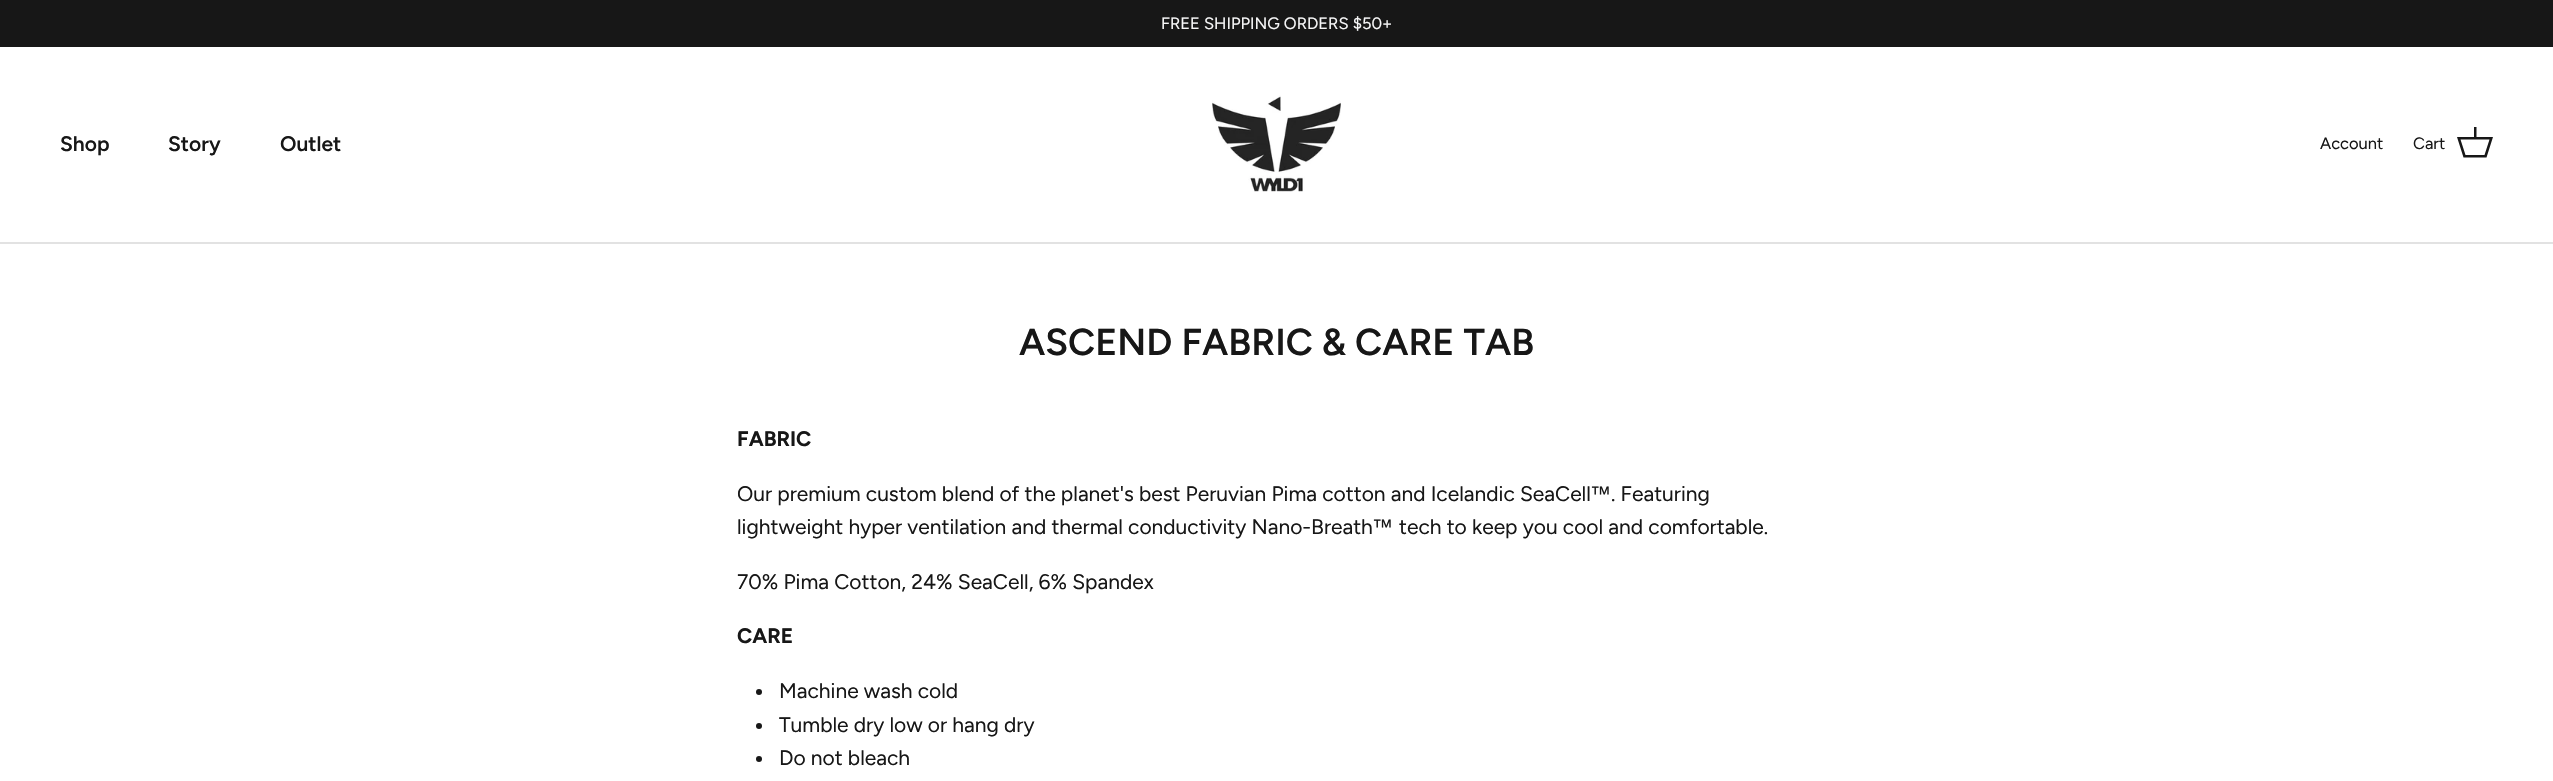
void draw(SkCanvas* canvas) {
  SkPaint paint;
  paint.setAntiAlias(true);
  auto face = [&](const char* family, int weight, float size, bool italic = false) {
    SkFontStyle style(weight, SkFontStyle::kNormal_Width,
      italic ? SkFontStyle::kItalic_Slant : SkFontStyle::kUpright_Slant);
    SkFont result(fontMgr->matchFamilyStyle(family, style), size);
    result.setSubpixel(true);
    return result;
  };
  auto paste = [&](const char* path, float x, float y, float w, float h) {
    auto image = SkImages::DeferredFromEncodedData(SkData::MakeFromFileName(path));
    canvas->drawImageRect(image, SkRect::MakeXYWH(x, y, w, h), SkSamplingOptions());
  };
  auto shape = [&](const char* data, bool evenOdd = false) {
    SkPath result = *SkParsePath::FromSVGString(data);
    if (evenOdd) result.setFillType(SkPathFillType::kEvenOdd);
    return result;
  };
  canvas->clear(0xffffffff);
  paint.setColor(0xff171717);
  canvas->drawRect(SkRect::MakeXYWH(0, 0, 2553, 47), paint);
  paint.setColor(0xffe2e2e2);
  canvas->drawRect(SkRect::MakeXYWH(0, 242, 2553, 2), paint);
  paste("img/1.png", 1212, 95, 129, 97);
  paint.setColor(0xff171717);
  canvas->drawPath(shape("M2474 137V127H2476.5V137H2493L2486.5 157.5H2463.5L2457 137ZM2460.5 139.5L2465.5 155H2484.5L2489.5 139.5Z"), paint);
  canvas->drawCircle(759, 692, 3, paint);
  canvas->drawCircle(759, 726, 3, paint);
  canvas->drawCircle(759, 759, 3, paint);
  auto f0 = face("Figtree", 400, 16.5f);
  paint.setColor(0xfff7f7f8);
  canvas->drawString("FREE SHIPPING ORDERS $50+", 1161, 29, f0, paint);
  auto f1 = face("Figtree", 600, 21);
  paint.setColor(0xff171717);
  {
    const struct { const char* s; float x, y; } items[] = {
      {"Shop", 60, 151},
      {"Story", 168, 151},
      {"Outlet", 280, 151},
    };
    for (auto [s, x, y] : items) {
      canvas->drawString(s, x, y, f1, paint);
    }
  }
  canvas->drawString("Account", 2320, 149, f0, paint);
  canvas->drawString("Cart", 2413, 149, f0, paint);
  auto f2 = face("Figtree", 600, 37.5f);
  canvas->drawString("ASCEND FABRIC & CARE TAB", 1019, 355, f2, paint);
  auto f3 = face("Figtree", 700, 21);
  canvas->drawString("FABRIC", 737, 446, f3, paint);
  auto f4 = face("Figtree", 400, 21);
  canvas->drawString("Our premium custom blend of the planet's best Peruvian Pima cotton and Icelandic SeaCell", 737, 501, f4, paint);
  auto f5 = face("Liberation Sans", 400, 21);
  canvas->drawString("™", 1590, 501, f5, paint);
  canvas->drawString(". Featuring", 1611, 501, f4, paint);
  canvas->drawString("lightweight hyper ventilation and thermal conductivity Nano-Breath", 737, 534, f4, paint);
  canvas->drawString("™", 1372, 534, f5, paint);
  canvas->drawString("tech to keep you cool and comfortable.", 1399, 534, f4, paint);
  canvas->drawString("70% Pima Cotton, 24% SeaCell, 6% Spandex", 737, 589, f4, paint);
  canvas->drawString("CARE", 737, 643, f3, paint);
  {
    const struct { const char* s; float x, y; } items[] = {
      {"Machine wash cold", 779, 698},
      {"Tumble dry low or hang dry", 779, 732},
      {"Do not bleach", 779, 765},
    };
    for (auto [s, x, y] : items) {
      canvas->drawString(s, x, y, f4, paint);
    }
  }
}
